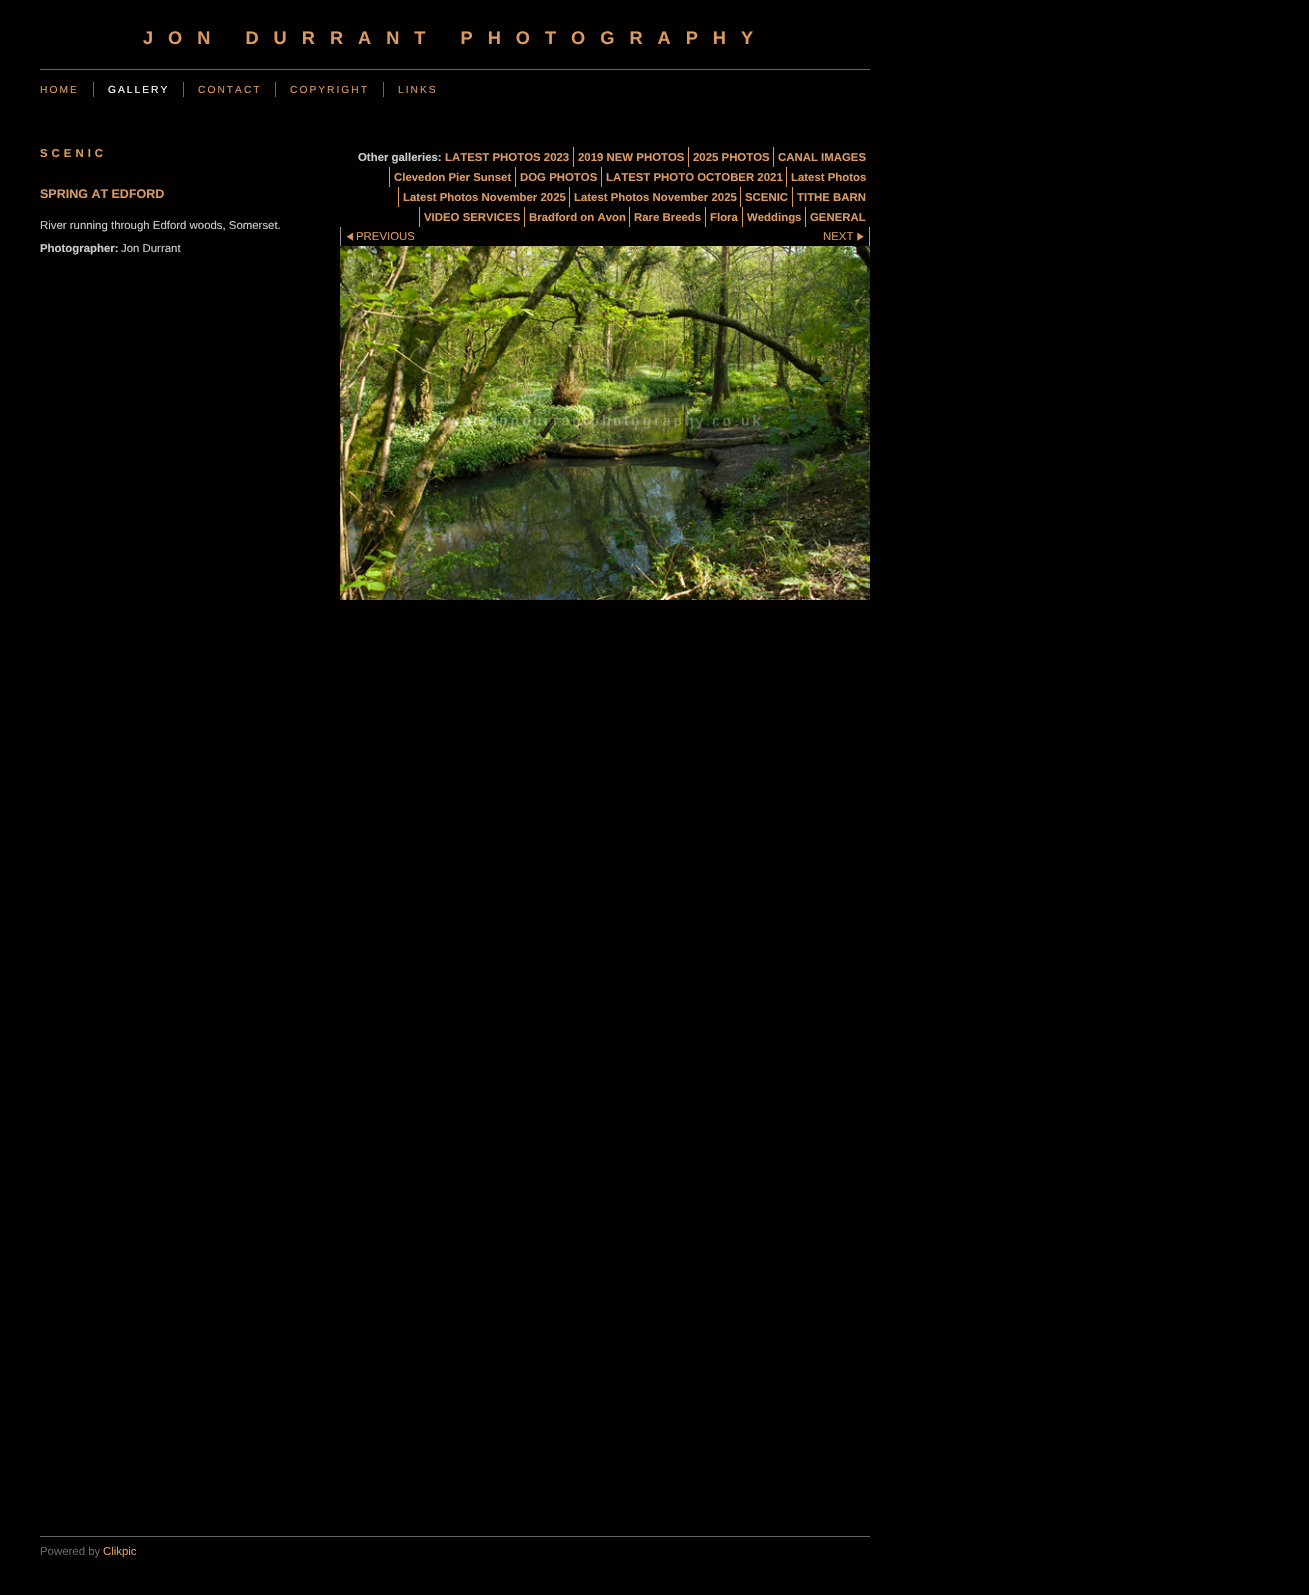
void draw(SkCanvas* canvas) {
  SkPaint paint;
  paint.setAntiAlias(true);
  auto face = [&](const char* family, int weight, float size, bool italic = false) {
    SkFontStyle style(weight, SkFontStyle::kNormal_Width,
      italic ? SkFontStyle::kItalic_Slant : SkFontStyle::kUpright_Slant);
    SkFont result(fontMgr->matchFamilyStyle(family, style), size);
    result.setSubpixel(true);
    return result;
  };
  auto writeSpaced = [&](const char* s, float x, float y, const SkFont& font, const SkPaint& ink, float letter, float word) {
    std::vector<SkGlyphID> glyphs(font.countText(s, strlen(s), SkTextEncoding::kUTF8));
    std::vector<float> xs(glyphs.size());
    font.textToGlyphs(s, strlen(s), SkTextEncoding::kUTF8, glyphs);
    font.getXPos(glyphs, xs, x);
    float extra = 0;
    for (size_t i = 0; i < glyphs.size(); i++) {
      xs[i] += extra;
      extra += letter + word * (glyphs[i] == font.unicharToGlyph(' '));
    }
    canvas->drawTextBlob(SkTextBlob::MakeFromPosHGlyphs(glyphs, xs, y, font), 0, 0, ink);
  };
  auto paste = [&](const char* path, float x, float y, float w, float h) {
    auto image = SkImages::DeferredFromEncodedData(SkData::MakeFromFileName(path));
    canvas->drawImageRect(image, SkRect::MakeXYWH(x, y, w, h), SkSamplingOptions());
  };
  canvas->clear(0xff030000);
  {
    const struct { float x, y, w, h; SkColor color; } items[] = {
      {40, 69, 830, 1, 0xff666666},
      {93, 82, 1, 15, 0xff666666},
      {183, 82, 1, 15, 0xff666666},
      {275, 82, 1, 15, 0xff666666},
      {383, 82, 1, 15, 0xff666666},
      {573, 147, 1, 20, 0xffda9b62},
      {688, 147, 1, 20, 0xffda9b62},
      {773, 147, 1, 20, 0xffda9b62},
      {389, 167, 1, 20, 0xffda9b62},
      {515, 167, 1, 20, 0xffda9b62},
      {601, 167, 1, 20, 0xffda9b62},
      {786, 167, 1, 20, 0xffda9b62},
      {398, 187, 1, 20, 0xffda9b62},
      {569, 187, 1, 20, 0xffda9b62},
      {740, 187, 1, 20, 0xffda9b62},
      {792, 187, 1, 20, 0xffda9b62},
      {419, 207, 1, 20, 0xffda9b62},
      {524, 207, 1, 20, 0xffda9b62},
      {629, 207, 1, 20, 0xffda9b62},
      {705, 207, 1, 20, 0xffda9b62},
      {742, 207, 1, 20, 0xffda9b62},
      {805, 207, 1, 20, 0xffda9b62},
      {340, 227, 1, 19, 0xff999999},
    };
    for (auto [x, y, w, h, color] : items) {
      paint.setColor(color);
      canvas->drawRect(SkRect::MakeXYWH(x, y, w, h), paint);
    }
  }
  paste("img/1.png", 346, 232, 8, 9);
  canvas->drawRect(SkRect::MakeXYWH(869, 227, 1, 19), paint);
  paste("img/2.png", 857, 232, 7, 9);
  paste("img/3.png", 340, 246, 530, 354);
  paint.setColor(0xff666666);
  canvas->drawRect(SkRect::MakeXYWH(40, 1536, 830, 1), paint);
  auto f0 = face("Liberation Sans", 700, 18.2f);
  paint.setColor(0xffda9b62);
  writeSpaced("JON DURRANT PHOTOGRAPHY", 143, 44, f0, paint, 15, 0);
  auto f1 = face("Liberation Sans", 400, 10.25f);
  writeSpaced("HOME", 40, 93, f1, paint, 2, 0);
  paint.setColor(0xffffffff);
  writeSpaced("GALLERY", 108, 93, f1, paint, 2, 0);
  paint.setColor(0xffda9b62);
  {
    const struct { const char* s; float x, y; } items[] = {
      {"CONTACT", 198, 93},
      {"COPYRIGHT", 290, 93},
      {"LINKS", 398, 93},
    };
    for (auto [s, x, y] : items) {
      writeSpaced(s, x, y, f1, paint, 2, 0);
    }
  }
  auto f2 = face("Liberation Sans", 700, 11.4f);
  writeSpaced("SCENIC", 40, 157, f2, paint, 4, 0);
  auto f3 = face("Liberation Sans", 700, 12.5f);
  canvas->drawString("SPRING AT EDFORD", 40, 198, f3, paint);
  auto f4 = face("Liberation Sans", 400, 11.4f);
  paint.setColor(0xffcccccc);
  canvas->drawString("River running through Edford woods, Somerset.", 40, 229, f4, paint);
  canvas->drawString("Photographer:", 40, 252, f2, paint);
  canvas->drawString("Jon Durrant", 121, 252, f4, paint);
  canvas->drawString("Other galleries:", 358, 161, f2, paint);
  paint.setColor(0xffda9b62);
  {
    const struct { const char* s; float x, y; } items[] = {
      {"LATEST PHOTOS 2023", 445, 161},
      {"2019 NEW PHOTOS", 578, 161},
      {"2025 PHOTOS", 693, 161},
      {"CANAL IMAGES", 778, 161},
      {"Clevedon Pier Sunset", 394, 181},
      {"DOG PHOTOS", 520, 181},
      {"LATEST PHOTO OCTOBER 2021", 606, 181},
      {"Latest Photos", 791, 181},
      {"Latest Photos November 2025", 403, 201},
      {"Latest Photos November 2025", 574, 201},
      {"SCENIC", 745, 201},
      {"TITHE BARN", 797, 201},
      {"VIDEO SERVICES", 424, 221},
      {"Bradford on Avon", 529, 221},
      {"Rare Breeds", 634, 221},
      {"Flora", 710, 221},
      {"Weddings", 747, 221},
      {"GENERAL", 810, 221},
    };
    for (auto [s, x, y] : items) {
      canvas->drawString(s, x, y, f2, paint);
    }
  }
  canvas->drawString("PREVIOUS", 356, 240, f4, paint);
  canvas->drawString("NEXT", 823, 240, f4, paint);
  paint.setColor(0xff666666);
  canvas->drawString("Powered by", 40, 1555, f4, paint);
  paint.setColor(0xffda9b62);
  canvas->drawString("Clikpic", 103, 1555, f4, paint);
}
